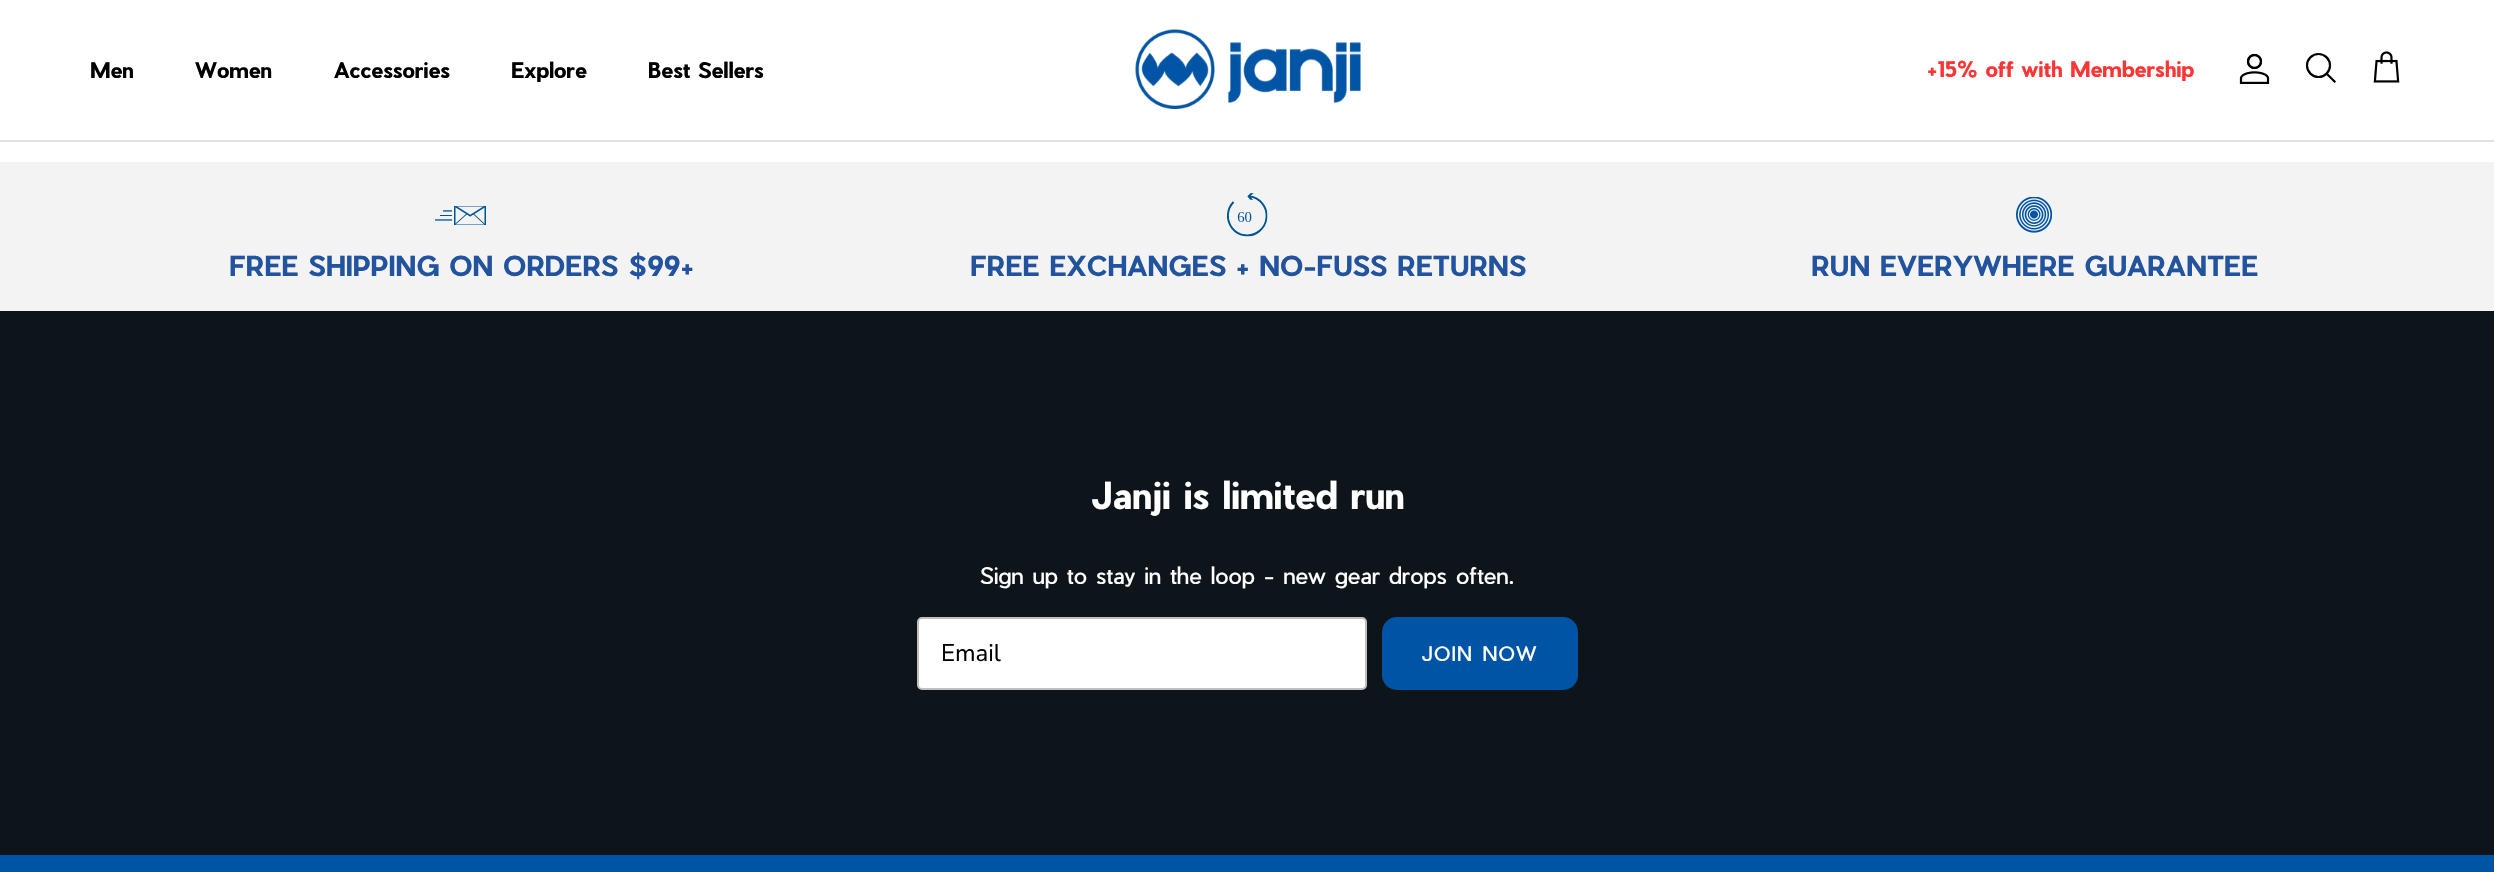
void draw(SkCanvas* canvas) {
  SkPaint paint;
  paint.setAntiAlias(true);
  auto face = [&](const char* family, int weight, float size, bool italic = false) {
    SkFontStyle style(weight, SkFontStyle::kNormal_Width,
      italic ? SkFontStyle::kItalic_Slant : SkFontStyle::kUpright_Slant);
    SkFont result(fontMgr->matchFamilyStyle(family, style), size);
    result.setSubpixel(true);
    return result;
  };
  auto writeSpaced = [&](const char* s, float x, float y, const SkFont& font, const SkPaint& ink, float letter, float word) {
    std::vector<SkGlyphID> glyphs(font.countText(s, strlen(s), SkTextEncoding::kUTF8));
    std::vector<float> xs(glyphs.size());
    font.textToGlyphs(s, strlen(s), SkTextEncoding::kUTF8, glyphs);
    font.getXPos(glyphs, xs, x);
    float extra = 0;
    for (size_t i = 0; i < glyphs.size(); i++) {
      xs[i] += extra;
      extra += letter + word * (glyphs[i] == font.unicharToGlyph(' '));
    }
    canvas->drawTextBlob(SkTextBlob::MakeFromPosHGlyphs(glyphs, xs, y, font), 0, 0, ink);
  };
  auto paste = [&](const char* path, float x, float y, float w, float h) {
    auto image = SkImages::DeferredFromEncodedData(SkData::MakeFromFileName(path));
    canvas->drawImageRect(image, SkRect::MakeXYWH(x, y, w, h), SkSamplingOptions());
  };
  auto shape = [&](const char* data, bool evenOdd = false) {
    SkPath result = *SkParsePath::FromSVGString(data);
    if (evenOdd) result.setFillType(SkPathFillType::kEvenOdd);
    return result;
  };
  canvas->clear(0xffffffff);
  paint.setColor(0xffdfe3e8);
  canvas->drawRect(SkRect::MakeXYWH(0, 140, 2494, 2), paint);
  paste("img/1.png", 1135, 29, 226, 80);
  paste("img/2.png", 2239, 53, 31, 31);
  paint.setStroke(true);
  paint.setStrokeWidth(2.2f);
  paint.setColor(0xff000000);
  canvas->drawCircle(2318.5f, 65.5f, 11.5f, paint);
  paint.setStrokeCap(SkPaint::kSquare_Cap);
  canvas->drawPath(shape("M2328 75L2334.5 81.5"), paint);
  paste("img/3.png", 2373, 51, 27, 32);
  paint.setStroke(false);
  paint.setColor(0xfff3f3f3);
  canvas->drawRect(SkRect::MakeXYWH(0, 162, 2494, 149), paint);
  paste("img/4.png", 435, 206, 51, 19);
  paste("img/5.png", 1227, 193, 41, 44);
  paste("img/6.png", 2016, 197, 36, 36);
  paint.setColor(0xff0d141a);
  canvas->drawRect(SkRect::MakeXYWH(0, 311, 2494, 544), paint);
  paint.setColor(0xffffffff);
  canvas->drawRoundRect(SkRect::MakeXYWH(918, 618, 448, 71), 4, 4, paint);
  paint.setStroke(true);
  paint.setStrokeWidth(2);
  paint.setStrokeCap(SkPaint::kButt_Cap);
  paint.setColor(0xffbfbfbf);
  canvas->drawRoundRect(SkRect::MakeXYWH(918, 618, 448, 71), 4, 4, paint);
  paint.setStroke(false);
  paint.setColor(0xff0054a5);
  canvas->drawRoundRect(SkRect::MakeXYWH(1382, 617, 196, 73), 15, 15, paint);
  canvas->drawRect(SkRect::MakeXYWH(0, 855, 2494, 17), paint);
  auto f0 = face("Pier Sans", 700, 21);
  paint.setColor(0xff000000);
  {
    const struct { const char* s; float x, y; } items[] = {
      {"Men", 90, 78},
      {"Women", 195, 78},
      {"Accessories", 334, 78},
      {"Explore", 511, 78},
      {"Best Sellers", 648, 78},
    };
    for (auto [s, x, y] : items) {
      canvas->drawString(s, x, y, f0, paint);
    }
  }
  paint.setColor(0xffff3535);
  canvas->drawString("+15% off with Membership", 1927, 77, f0, paint);
  auto f1 = face("Pier Sans", 700, 27.1f);
  paint.setColor(0xff22539f);
  {
    const struct { const char* s; float x, y; } items[] = {
      {"FREE SHIPPING ON ORDERS $99+", 229, 276},
      {"FREE EXCHANGES + NO-FUSS RETURNS", 970, 276},
      {"RUN EVERYWHERE GUARANTEE", 1811, 276},
    };
    for (auto [s, x, y] : items) {
      canvas->drawString(s, x, y, f1, paint);
    }
  }
  auto f2 = face("Pier Sans", 700, 36.25f);
  paint.setColor(0xffffffff);
  canvas->drawString("Janji is limited run", 1090, 509, f2, paint);
  auto f3 = face("Pier Sans", 400, 22.5f);
  canvas->drawString("Sign up to stay in the loop - new gear drops often.", 980, 584, f3, paint);
  auto f4 = face("Nunito Sans", 400, 24);
  paint.setColor(0xff000000);
  canvas->drawString("Email", 941, 661, f4, paint);
  auto f5 = face("Pier Sans", 400, 19.5f);
  paint.setColor(0xffffffff);
  writeSpaced("JOIN NOW", 1421, 661, f5, paint, 1.5f, 0);
}
